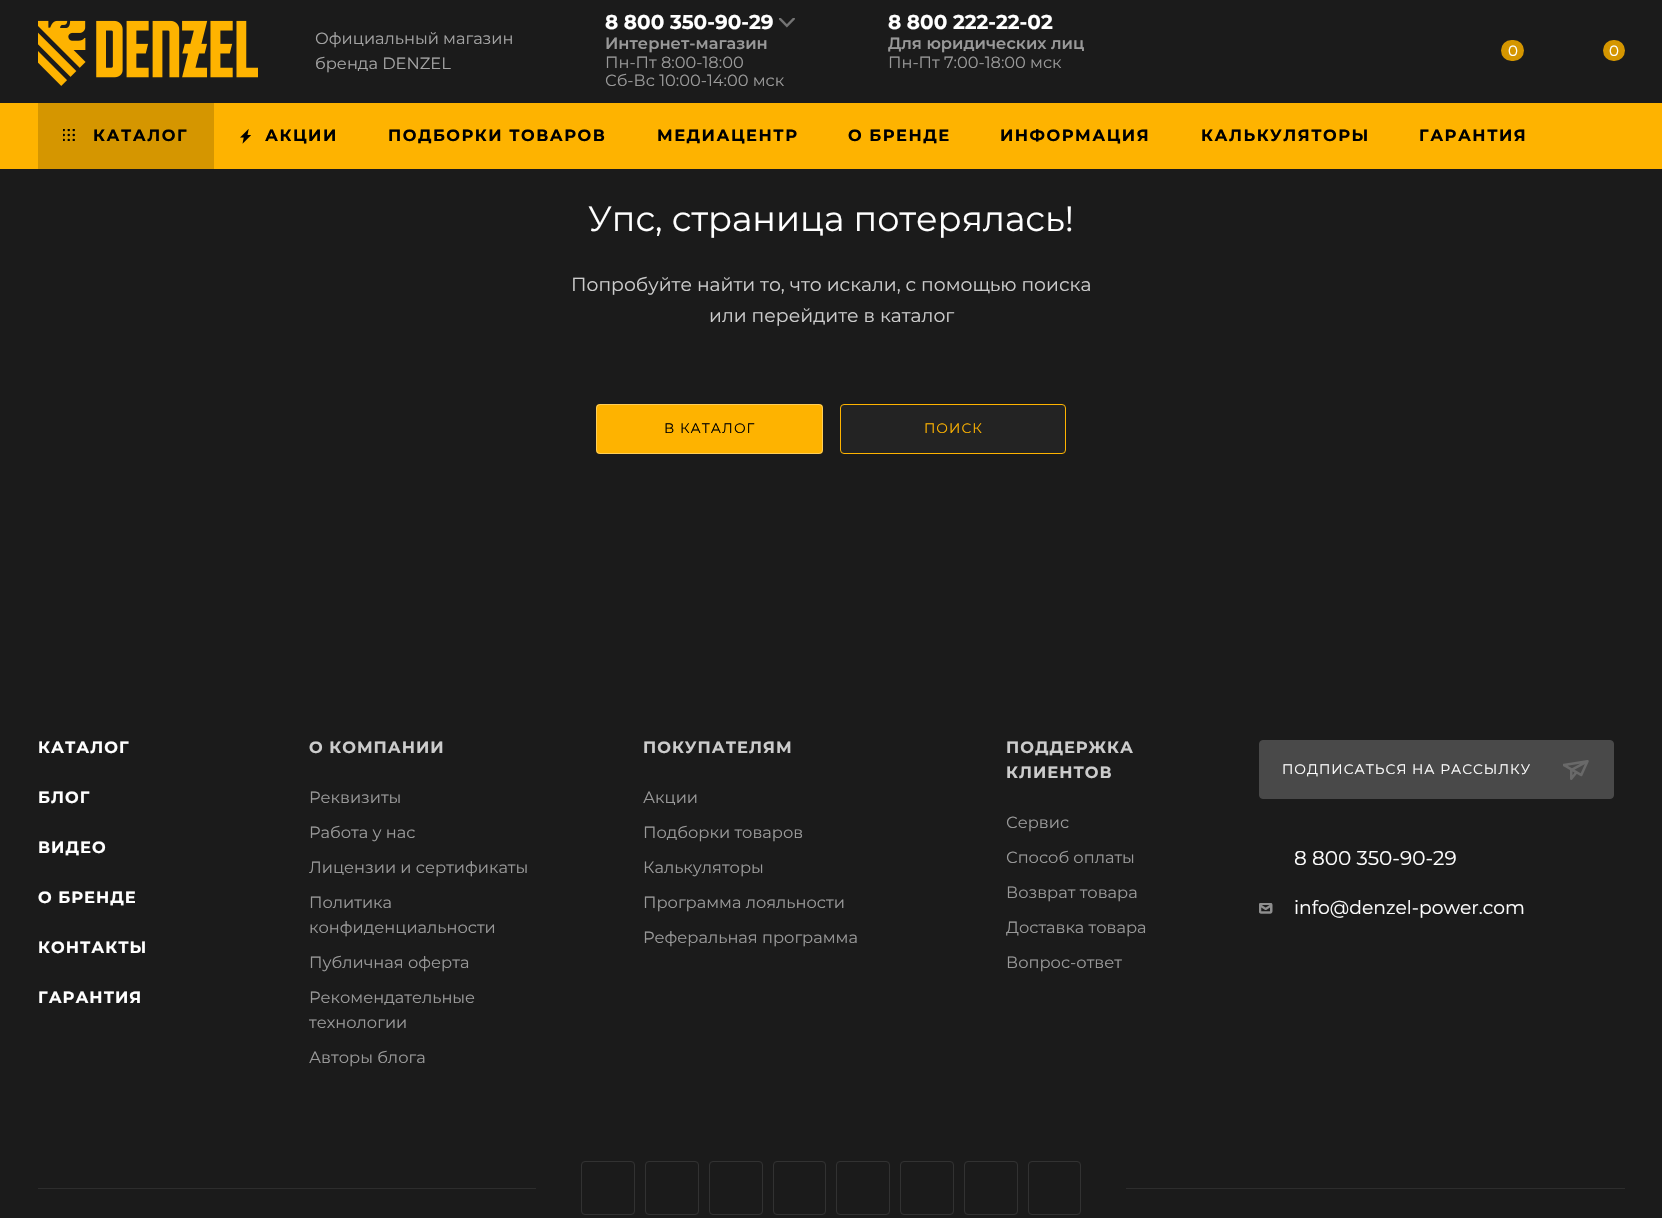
void draw(SkCanvas* canvas) {
  SkPaint paint;
  paint.setAntiAlias(true);
  auto face = [&](const char* family, int weight, float size, bool italic = false) {
    SkFontStyle style(weight, SkFontStyle::kNormal_Width,
      italic ? SkFontStyle::kItalic_Slant : SkFontStyle::kUpright_Slant);
    SkFont result(fontMgr->matchFamilyStyle(family, style), size);
    result.setSubpixel(true);
    return result;
  };
  auto writeSpaced = [&](const char* s, float x, float y, const SkFont& font, const SkPaint& ink, float letter, float word) {
    std::vector<SkGlyphID> glyphs(font.countText(s, strlen(s), SkTextEncoding::kUTF8));
    std::vector<float> xs(glyphs.size());
    font.textToGlyphs(s, strlen(s), SkTextEncoding::kUTF8, glyphs);
    font.getXPos(glyphs, xs, x);
    float extra = 0;
    for (size_t i = 0; i < glyphs.size(); i++) {
      xs[i] += extra;
      extra += letter + word * (glyphs[i] == font.unicharToGlyph(' '));
    }
    canvas->drawTextBlob(SkTextBlob::MakeFromPosHGlyphs(glyphs, xs, y, font), 0, 0, ink);
  };
  auto paste = [&](const char* path, float x, float y, float w, float h) {
    auto image = SkImages::DeferredFromEncodedData(SkData::MakeFromFileName(path));
    canvas->drawImageRect(image, SkRect::MakeXYWH(x, y, w, h), SkSamplingOptions());
  };
  canvas->clear(0xff1b1b1b);
  paste("img/1.png", 38, 20, 220, 66);
  paste("img/2.png", 779, 18, 16, 10);
  paint.setColor(0xffd59600);
  canvas->drawRoundRect(SkRect::MakeXYWH(1501, 40, 23, 21), 10.5f, 10.5f, paint);
  canvas->drawRoundRect(SkRect::MakeXYWH(1603, 40, 22, 21), 10.5f, 10.5f, paint);
  paint.setColor(0xfffeb300);
  canvas->drawRect(SkRect::MakeXYWH(0, 103, 1662, 66), paint);
  paint.setColor(0xffd59600);
  canvas->drawRect(SkRect::MakeXYWH(38, 103, 176, 66), paint);
  paste("img/3.png", 63, 129, 12, 12);
  paste("img/4.png", 240, 129, 11, 15);
  paint.setColor(0xfffeb300);
  canvas->drawRoundRect(SkRect::MakeXYWH(596, 404, 227, 50), 4, 4, paint);
  paint.setStroke(true);
  paint.setStrokeWidth(1);
  paint.setColor(0x59ffffff);
  canvas->drawRoundRect(SkRect::MakeXYWH(596.5f, 404.5f, 226, 49), 3.5f, 3.5f, paint);
  paint.setStroke(false);
  paint.setColor(0xff232323);
  canvas->drawRoundRect(SkRect::MakeXYWH(840.5f, 404.5f, 225, 49), 3.5f, 3.5f, paint);
  paint.setStroke(true);
  paint.setColor(0xfffeb300);
  canvas->drawRoundRect(SkRect::MakeXYWH(840.5f, 404.5f, 225, 49), 3.5f, 3.5f, paint);
  paint.setStroke(false);
  paint.setColor(0xff494949);
  canvas->drawRoundRect(SkRect::MakeXYWH(1259.5f, 740.5f, 354, 58), 3.5f, 3.5f, paint);
  paint.setStroke(true);
  canvas->drawRoundRect(SkRect::MakeXYWH(1259.5f, 740.5f, 354, 58), 3.5f, 3.5f, paint);
  paste("img/5.png", 1563, 760, 26, 20);
  paste("img/6.png", 1259, 903, 14, 11);
  paint.setStroke(false);
  paint.setColor(0xff2d2d2d);
  canvas->drawRect(SkRect::MakeXYWH(38, 1188, 1587, 1), paint);
  paint.setColor(0xff1b1b1b);
  canvas->drawRect(SkRect::MakeXYWH(536, 1188, 590, 1), paint);
  paint.setStroke(true);
  paint.setColor(0xff323232);
  canvas->drawRoundRect(SkRect::MakeXYWH(581.5f, 1161.5f, 53, 53), 3.5f, 3.5f, paint);
  canvas->drawRoundRect(SkRect::MakeXYWH(645.5f, 1161.5f, 53, 53), 3.5f, 3.5f, paint);
  canvas->drawRoundRect(SkRect::MakeXYWH(709.5f, 1161.5f, 53, 53), 3.5f, 3.5f, paint);
  canvas->drawRoundRect(SkRect::MakeXYWH(773.5f, 1161.5f, 52, 53), 3.5f, 3.5f, paint);
  canvas->drawRoundRect(SkRect::MakeXYWH(836.5f, 1161.5f, 53, 53), 3.5f, 3.5f, paint);
  canvas->drawRoundRect(SkRect::MakeXYWH(900.5f, 1161.5f, 53, 53), 3.5f, 3.5f, paint);
  canvas->drawRoundRect(SkRect::MakeXYWH(964.5f, 1161.5f, 53, 53), 3.5f, 3.5f, paint);
  canvas->drawRoundRect(SkRect::MakeXYWH(1028.5f, 1161.5f, 52, 53), 3.5f, 3.5f, paint);
  auto f0 = face("Montserrat", 400, 16.25f);
  paint.setStroke(false);
  paint.setColor(0xffa4a4a4);
  canvas->drawString("Официальный магазин", 315, 44, f0, paint);
  canvas->drawString("бренда DENZEL", 315, 69, f0, paint);
  auto f1 = face("Montserrat", 700, 20);
  paint.setColor(0xffffffff);
  canvas->drawString("8 800 350-90-29", 605, 29, f1, paint);
  auto f2 = face("Montserrat", 600, 16.25f);
  paint.setColor(0xff999999);
  canvas->drawString("Интернет-магазин", 605, 49, f2, paint);
  canvas->drawString("Пн-Пт 8:00-18:00", 605, 68, f0, paint);
  canvas->drawString("Сб-Вс 10:00-14:00 мск", 605, 86, f0, paint);
  paint.setColor(0xffffffff);
  canvas->drawString("8 800 222-22-02", 888, 29, f1, paint);
  paint.setColor(0xff999999);
  canvas->drawString("Для юридических лиц", 888, 49, f2, paint);
  canvas->drawString("Пн-Пт 7:00-18:00 мск", 888, 68, f0, paint);
  auto f3 = face("Montserrat", 400, 15);
  paint.setColor(0xffffffff);
  canvas->drawString("0", 1508, 56, f3, paint);
  canvas->drawString("0", 1609, 56, f3, paint);
  auto f4 = face("Montserrat", 700, 16.25f);
  paint.setColor(0xff000000);
  {
    const struct { const char* s; float x, y; } items[] = {
      {"КАТАЛОГ", 93, 141},
      {"АКЦИИ", 265, 141},
      {"ПОДБОРКИ ТОВАРОВ", 388, 141},
      {"МЕДИАЦЕНТР", 657, 141},
      {"О БРЕНДЕ", 848, 141},
      {"ИНФОРМАЦИЯ", 1000, 141},
      {"КАЛЬКУЛЯТОРЫ", 1201, 141},
      {"ГАРАНТИЯ", 1419, 141},
    };
    for (auto [s, x, y] : items) {
      writeSpaced(s, x, y, f4, paint, 1.5f, 0);
    }
  }
  auto f5 = face("Montserrat", 400, 35);
  paint.setColor(0xffffffff);
  canvas->drawString("Упс, страница потерялась!", 588, 231, f5, paint);
  auto f6 = face("Montserrat", 400, 18.75f);
  paint.setColor(0xffcccccc);
  canvas->drawString("Попробуйте найти то, что искали, с помощью поиска", 571, 291, f6, paint);
  canvas->drawString("или перейдите в каталог", 709, 322, f6, paint);
  auto f7 = face("Montserrat", 400, 13.75f);
  paint.setColor(0xff000000);
  writeSpaced("В КАТАЛОГ", 664, 433, f7, paint, 1, 0);
  paint.setColor(0xfffeb300);
  writeSpaced("ПОИСК", 924, 433, f7, paint, 1, 0);
  paint.setColor(0xffffffff);
  {
    const struct { const char* s; float x, y; } items[] = {
      {"КАТАЛОГ", 38, 753},
      {"БЛОГ", 38, 803},
      {"ВИДЕО", 38, 853},
      {"О БРЕНДЕ", 38, 903},
      {"КОНТАКТЫ", 38, 953},
      {"ГАРАНТИЯ", 38, 1003},
    };
    for (auto [s, x, y] : items) {
      writeSpaced(s, x, y, f4, paint, 1, 0);
    }
  }
  paint.setColor(0xffcccccc);
  writeSpaced("О КОМПАНИИ", 309, 753, f4, paint, 1, 0);
  paint.setColor(0xff999999);
  {
    const struct { const char* s; float x, y; } items[] = {
      {"Реквизиты", 309, 803},
      {"Работа у нас", 309, 838},
      {"Лицензии и сертификаты", 309, 873},
      {"Политика", 309, 908},
      {"конфиденциальности", 309, 933},
      {"Публичная оферта", 309, 968},
      {"Рекомендательные", 309, 1003},
      {"технологии", 309, 1028},
      {"Авторы блога", 309, 1063},
    };
    for (auto [s, x, y] : items) {
      canvas->drawString(s, x, y, f0, paint);
    }
  }
  paint.setColor(0xffcccccc);
  writeSpaced("ПОКУПАТЕЛЯМ", 643, 753, f4, paint, 1, 0);
  paint.setColor(0xff999999);
  {
    const struct { const char* s; float x, y; } items[] = {
      {"Акции", 643, 803},
      {"Подборки товаров", 643, 838},
      {"Калькуляторы", 643, 873},
      {"Программа лояльности", 643, 908},
      {"Реферальная программа", 643, 943},
    };
    for (auto [s, x, y] : items) {
      canvas->drawString(s, x, y, f0, paint);
    }
  }
  paint.setColor(0xffcccccc);
  writeSpaced("ПОДДЕРЖКА", 1006, 753, f4, paint, 1, 0);
  writeSpaced("КЛИЕНТОВ", 1006, 778, f4, paint, 1, 0);
  paint.setColor(0xff999999);
  {
    const struct { const char* s; float x, y; } items[] = {
      {"Сервис", 1006, 828},
      {"Способ оплаты", 1006, 863},
      {"Возврат товара", 1006, 898},
      {"Доставка товара", 1006, 933},
      {"Вопрос-ответ", 1006, 968},
    };
    for (auto [s, x, y] : items) {
      canvas->drawString(s, x, y, f0, paint);
    }
  }
  paint.setColor(0xffffffff);
  writeSpaced("ПОДПИСАТЬСЯ НА РАССЫЛКУ", 1282, 774, f7, paint, 1, 0);
  auto f8 = face("Montserrat", 400, 20);
  canvas->drawString("8 800 350-90-29", 1294, 865, f8, paint);
  canvas->drawString("info@denzel-power.com", 1294, 914, f6, paint);
}
